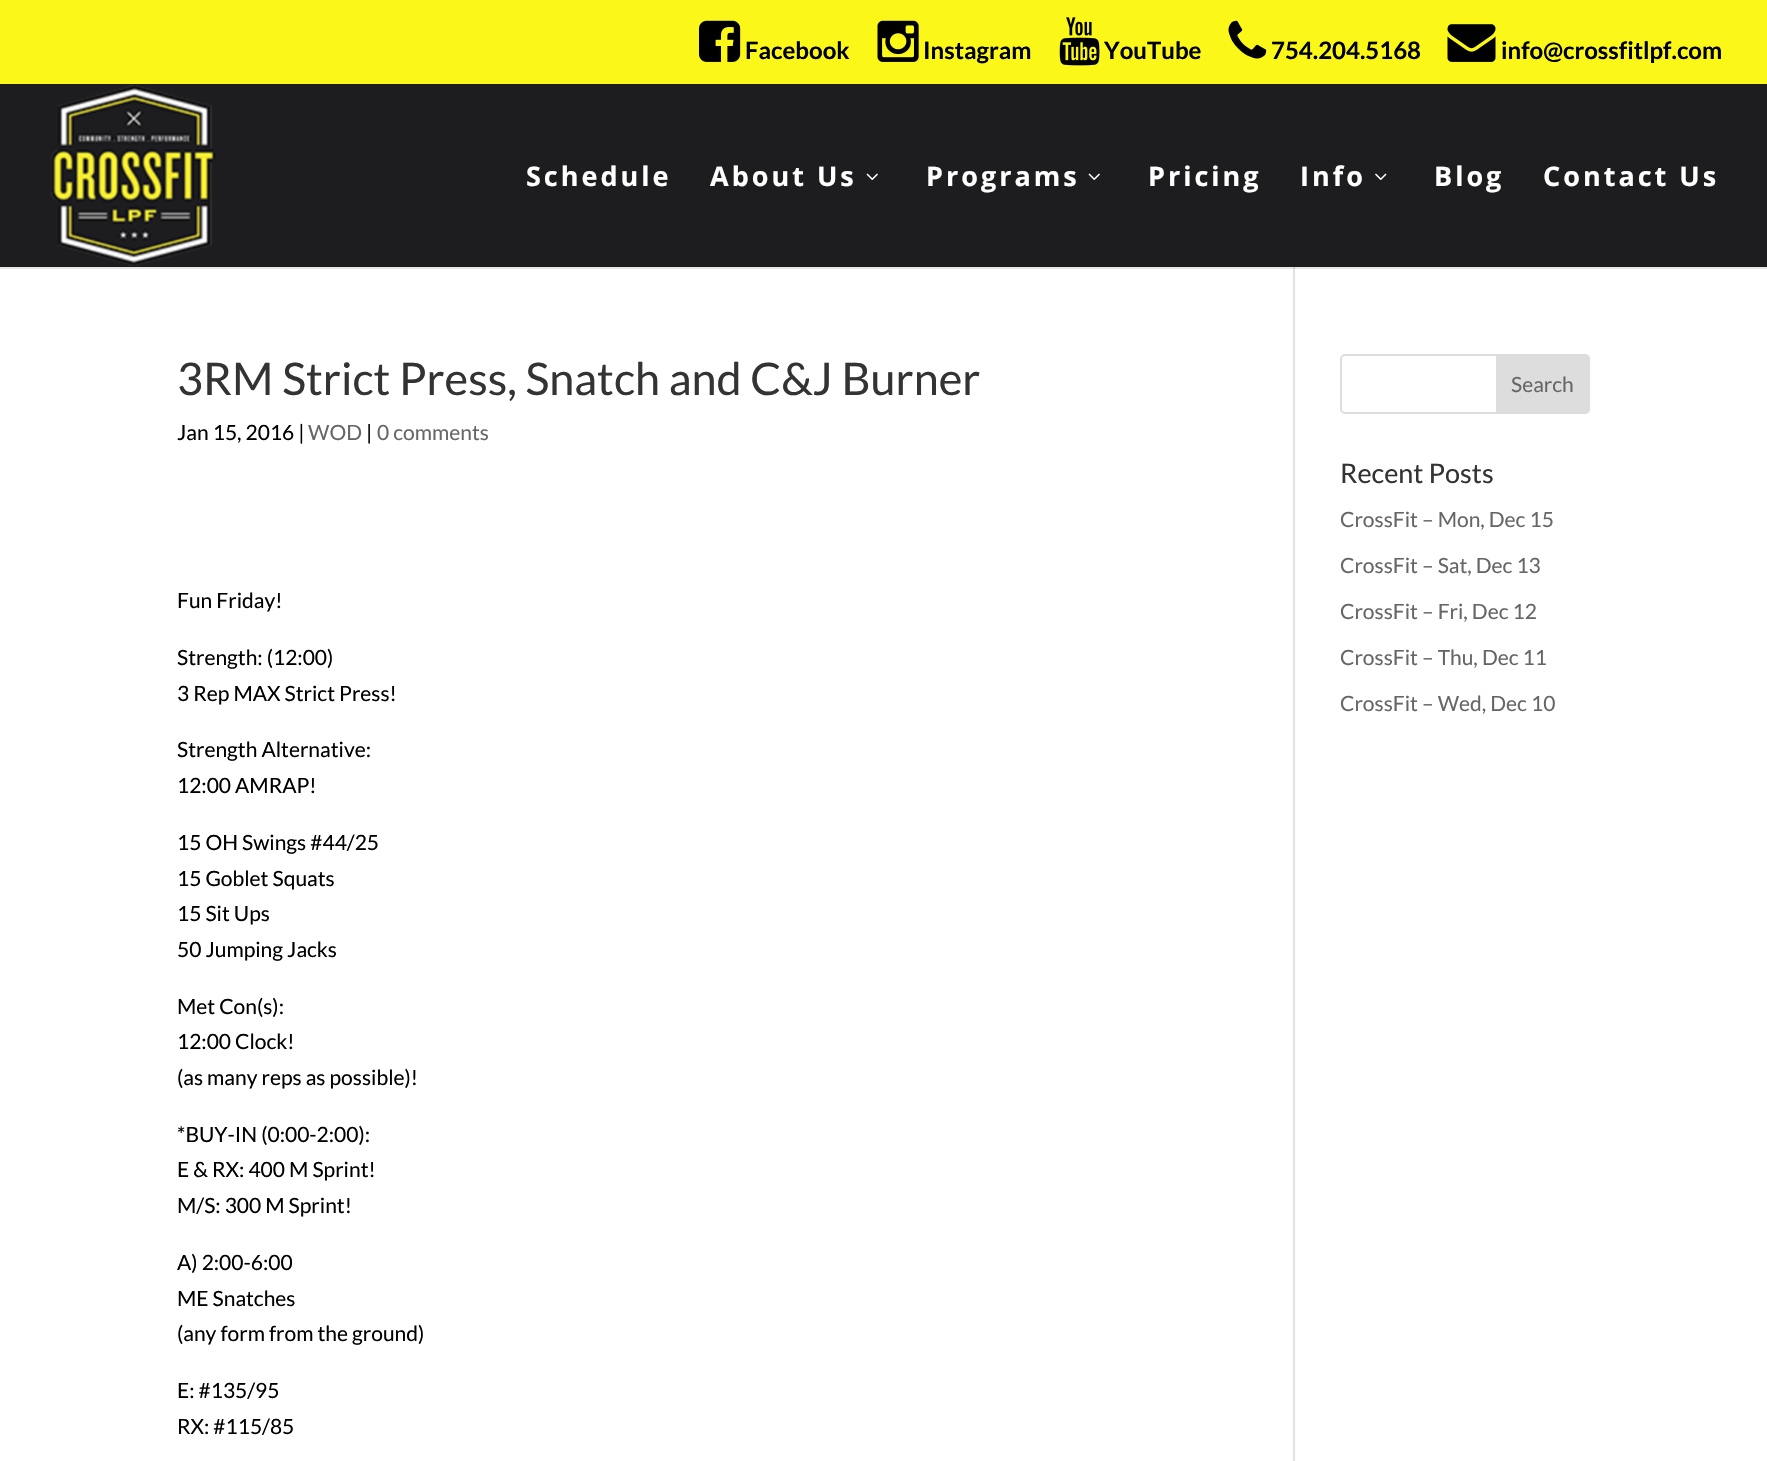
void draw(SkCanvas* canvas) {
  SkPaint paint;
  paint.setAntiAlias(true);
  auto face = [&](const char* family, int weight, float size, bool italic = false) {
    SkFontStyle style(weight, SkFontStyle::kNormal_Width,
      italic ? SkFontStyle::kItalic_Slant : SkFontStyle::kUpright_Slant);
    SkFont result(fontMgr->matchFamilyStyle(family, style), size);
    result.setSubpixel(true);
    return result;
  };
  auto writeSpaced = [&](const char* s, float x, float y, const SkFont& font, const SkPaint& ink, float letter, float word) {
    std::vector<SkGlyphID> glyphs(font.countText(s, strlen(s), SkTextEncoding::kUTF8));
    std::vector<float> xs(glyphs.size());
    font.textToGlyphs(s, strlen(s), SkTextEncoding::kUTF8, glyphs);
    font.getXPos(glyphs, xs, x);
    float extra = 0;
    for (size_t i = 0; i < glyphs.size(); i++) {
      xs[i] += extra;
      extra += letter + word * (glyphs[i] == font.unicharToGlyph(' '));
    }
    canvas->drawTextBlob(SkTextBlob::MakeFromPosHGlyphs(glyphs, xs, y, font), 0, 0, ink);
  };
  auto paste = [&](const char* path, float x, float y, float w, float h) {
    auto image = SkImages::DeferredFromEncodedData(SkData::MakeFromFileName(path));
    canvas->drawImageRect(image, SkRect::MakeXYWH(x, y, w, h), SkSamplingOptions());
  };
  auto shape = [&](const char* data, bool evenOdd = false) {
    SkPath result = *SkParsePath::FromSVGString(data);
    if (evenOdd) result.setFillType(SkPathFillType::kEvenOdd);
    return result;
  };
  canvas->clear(0xffffffff);
  paint.setColor(0xffe6e6e6);
  canvas->drawRect(SkRect::MakeXYWH(0, 267, 1767, 2), paint);
  paint.setColor(0xfffaf719);
  canvas->drawRect(SkRect::MakeXYWH(0, 0, 1767, 84), paint);
  paste("img/1.png", 699, 20, 42, 42);
  paste("img/2.png", 877, 20, 42, 42);
  paste("img/3.png", 1059, 17, 41, 49);
  paste("img/4.png", 1228, 20, 39, 39);
  paste("img/5.png", 1447, 24, 49, 38);
  paint.setColor(0xff1d1d1f);
  canvas->drawRect(SkRect::MakeXYWH(0, 84, 1767, 183), paint);
  paste("img/6.png", 50, 85, 166, 181);
  paste("img/7.png", 866, 173, 12, 7);
  paste("img/7.png", 1088, 173, 12, 7);
  paste("img/8.png", 1375, 173, 12, 7);
  paint.setColor(0xffe2e2e2);
  canvas->drawRect(SkRect::MakeXYWH(1293, 267, 2, 1194), paint);
  paint.setColor(0xffcbcbcb);
  canvas->drawRect(SkRect::MakeXYWH(1293, 267, 2, 2), paint);
  paint.setStroke(true);
  paint.setStrokeWidth(2);
  paint.setColor(0xffdddddd);
  canvas->drawRoundRect(SkRect::MakeXYWH(1341, 355, 248, 58), 4, 4, paint);
  paint.setStroke(false);
  canvas->drawPath(shape("M1497 355H1585C1587 355 1589 357 1589 359V409C1589 411 1587 413 1585 413H1497Z"), paint);
  paint.setStroke(true);
  canvas->drawPath(shape("M1497 355H1585C1587 355 1589 357 1589 359V409C1589 411 1587 413 1585 413H1497Z"), paint);
  auto f0 = face("Lato", 700, 24);
  paint.setStroke(false);
  paint.setColor(0xff000000);
  {
    const struct { const char* s; float x, y; } items[] = {
      {"Facebook", 745, 59},
      {"Instagram", 923, 59},
      {"YouTube", 1104, 59},
      {"754.204.5168", 1271, 59},
      {"info@crossfitlpf.com", 1501, 59},
    };
    for (auto [s, x, y] : items) {
      canvas->drawString(s, x, y, f0, paint);
    }
  }
  auto f1 = face("Open Sans", 700, 27);
  paint.setColor(0xffffffff);
  {
    const struct { const char* s; float x, y; } items[] = {
      {"Schedule", 526, 186},
      {"About Us", 710, 186},
      {"Programs", 926, 186},
      {"Pricing", 1148, 186},
      {"Info", 1300, 186},
      {"Blog", 1434, 186},
      {"Contact Us", 1543, 186},
    };
    for (auto [s, x, y] : items) {
      writeSpaced(s, x, y, f1, paint, 3, 0);
    }
  }
  auto f2 = face("Lato", 400, 45);
  paint.setColor(0xff333333);
  canvas->drawString("3RM Strict Press, Snatch and C&J Burner", 177, 395, f2, paint);
  auto f3 = face("Lato", 400, 21);
  paint.setColor(0xff000000);
  canvas->drawString("Jan 15, 2016 |", 177, 440, f3, paint);
  paint.setColor(0xff666666);
  canvas->drawString("WOD", 308, 440, f3, paint);
  paint.setColor(0xff000000);
  canvas->drawString("|", 366, 440, f3, paint);
  paint.setColor(0xff666666);
  canvas->drawString("0 comments", 377, 440, f3, paint);
  paint.setColor(0xff000000);
  {
    const struct { const char* s; float x, y; } items[] = {
      {"Fun Friday!", 177, 608},
      {"Strength: (12:00)", 177, 665},
      {"3 Rep MAX Strict Press!", 177, 701},
      {"Strength Alternative:", 177, 757},
      {"12:00 AMRAP!", 177, 793},
      {"15 OH Swings #44/25", 177, 850},
      {"15 Goblet Squats", 177, 886},
      {"15 Sit Ups", 177, 921},
      {"50 Jumping Jacks", 177, 957},
      {"Met Con(s):", 177, 1014},
      {"12:00 Clock!", 177, 1049},
      {"(as many reps as possible)!", 177, 1085},
      {"*BUY-IN (0:00-2:00):", 177, 1142},
      {"E & RX: 400 M Sprint!", 177, 1177},
      {"M/S: 300 M Sprint!", 177, 1213},
      {"A) 2:00-6:00", 177, 1270},
      {"ME Snatches", 177, 1306},
      {"(any form from the ground)", 177, 1341},
      {"E: #135/95", 177, 1398},
      {"RX: #115/85", 177, 1434},
    };
    for (auto [s, x, y] : items) {
      canvas->drawString(s, x, y, f3, paint);
    }
  }
  paint.setColor(0xff666666);
  canvas->drawString("Search", 1511, 392, f3, paint);
  auto f4 = face("Lato", 400, 27);
  paint.setColor(0xff333333);
  canvas->drawString("Recent Posts", 1340, 483, f4, paint);
  paint.setColor(0xff666666);
  {
    const struct { const char* s; float x, y; } items[] = {
      {"CrossFit – Mon, Dec 15", 1340, 527},
      {"CrossFit – Sat, Dec 13", 1340, 573},
      {"CrossFit – Fri, Dec 12", 1340, 619},
      {"CrossFit – Thu, Dec 11", 1340, 665},
      {"CrossFit – Wed, Dec 10", 1340, 711},
    };
    for (auto [s, x, y] : items) {
      canvas->drawString(s, x, y, f3, paint);
    }
  }
}
